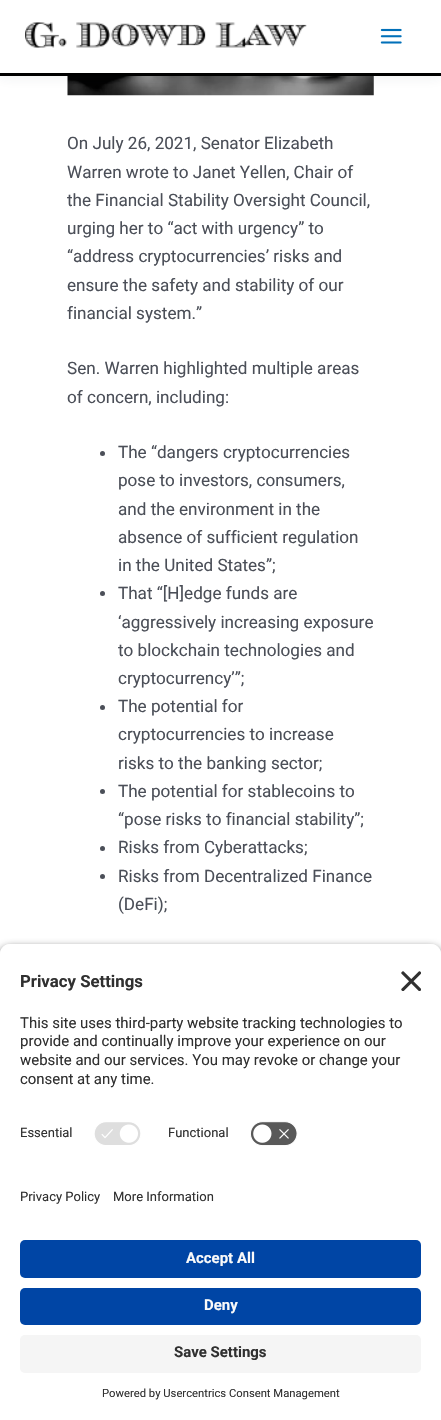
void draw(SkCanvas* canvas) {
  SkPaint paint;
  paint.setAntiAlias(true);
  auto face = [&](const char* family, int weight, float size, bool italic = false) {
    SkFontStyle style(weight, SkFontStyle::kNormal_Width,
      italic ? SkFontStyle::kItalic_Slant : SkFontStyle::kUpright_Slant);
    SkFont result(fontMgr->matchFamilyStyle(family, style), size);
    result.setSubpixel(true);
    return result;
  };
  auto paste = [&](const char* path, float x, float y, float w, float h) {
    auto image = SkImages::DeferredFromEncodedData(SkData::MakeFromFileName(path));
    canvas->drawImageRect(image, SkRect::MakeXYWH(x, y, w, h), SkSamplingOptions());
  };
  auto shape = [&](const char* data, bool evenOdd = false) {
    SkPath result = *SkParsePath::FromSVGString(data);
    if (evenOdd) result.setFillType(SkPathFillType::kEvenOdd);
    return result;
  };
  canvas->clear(0xffffffff);
  paste("img/3.png", 67, 76, 307, 20);
  paint.setColor(0x12243242);
  paint.setMaskFilter(SkMaskFilter::MakeBlur(kNormal_SkBlurStyle, 6));
  canvas->drawRect(SkRect::MakeXYWH(0, 3, 441, 75), paint);
  paint.setMaskFilter(nullptr);
  paint.setColor(0xffffffff);
  canvas->drawRect(SkRect::MakeXYWH(0, 0, 441, 73), paint);
  paint.setColor(0xff000000);
  canvas->drawRect(SkRect::MakeXYWH(0, 73, 441, 3), paint);
  paste("img/1.png", 25, 22, 282, 26);
  paste("img/2.png", 380, 28, 22, 16);
  paint.setColor(0xff4b4f58);
  canvas->drawCircle(102.5f, 453.5f, 2.5f, paint);
  canvas->drawCircle(102.5f, 593.5f, 2.5f, paint);
  canvas->drawCircle(102.5f, 707.5f, 2.5f, paint);
  canvas->drawCircle(102.5f, 791.5f, 2.5f, paint);
  canvas->drawCircle(102.5f, 848.5f, 2.5f, paint);
  canvas->drawCircle(102.5f, 876.5f, 2.5f, paint);
  paint.setColor(0xcc000000);
  paint.setMaskFilter(SkMaskFilter::MakeBlur(kNormal_SkBlurStyle, 4.5f));
  canvas->drawRoundRect(SkRect::MakeXYWH(0, 948, 441, 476), 10, 10, paint);
  paint.setMaskFilter(nullptr);
  paint.setColor(0xffffffff);
  canvas->drawPath(shape("M10 944H431C436.5 944 441 948.5 441 954V1169H0V954C0 948.5 4.5 944 10 944Z"), paint);
  canvas->drawPath(shape("M10 944H431C436.5 944 441 948.5 441 954V1114H0V954C0 948.5 4.5 944 10 944Z"), paint);
  paste("img/4.png", 401, 971, 20, 20);
  paste("img/5.png", 94, 1122, 47, 23);
  paste("img/6.png", 250, 1121, 48, 25);
  canvas->drawRect(SkRect::MakeXYWH(0, 1169, 441, 251), paint);
  paint.setColor(0xff0045a5);
  canvas->drawRoundRect(SkRect::MakeXYWH(20, 1240, 401, 38), 5, 5, paint);
  canvas->drawRoundRect(SkRect::MakeXYWH(20, 1288, 401, 37), 5, 5, paint);
  paint.setColor(0xfff5f5f5);
  canvas->drawRoundRect(SkRect::MakeXYWH(20, 1335, 401, 38), 5, 5, paint);
  auto f0 = face("Roboto", 400, 17.1f);
  paint.setColor(0xff4b4f58);
  {
    const struct { const char* s; float x, y; } items[] = {
      {"On July 26, 2021, Senator Elizabeth", 67, 149},
      {"Warren wrote to Janet Yellen, Chair of", 67, 178},
      {"the Financial Stability Oversight Council,", 67, 206},
      {"urging her to “act with urgency” to", 67, 234},
      {"“address cryptocurrencies’ risks and", 67, 262},
      {"ensure the safety and stability of our", 67, 291},
      {"financial system.”", 67, 319},
      {"Sen. Warren highlighted multiple areas", 67, 374},
      {"of concern, including:", 67, 403},
      {"The “dangers cryptocurrencies", 118, 458},
      {"pose to investors, consumers,", 118, 486},
      {"and the environment in the", 118, 515},
      {"absence of sufficient regulation", 118, 543},
      {"in the United States”;", 118, 571},
      {"That “[H]edge funds are", 118, 599},
      {"‘aggressively increasing exposure", 118, 628},
      {"to blockchain technologies and", 118, 656},
      {"cryptocurrency’”;", 118, 684},
      {"The potential for", 118, 712},
      {"cryptocurrencies to increase", 118, 740},
      {"risks to the banking sector;", 118, 769},
      {"The potential for stablecoins to", 118, 797},
      {"“pose risks to financial stability”;", 118, 825},
      {"Risks from Cyberattacks;", 118, 853},
      {"Risks from Decentralized Finance", 118, 882},
      {"(DeFi);", 118, 910},
    };
    for (auto [s, x, y] : items) {
      canvas->drawString(s, x, y, f0, paint);
    }
  }
  auto f1 = face("Roboto", 700, 16.75f);
  paint.setColor(0xff303030);
  canvas->drawString("Privacy Settings", 20, 987, f1, paint);
  auto f2 = face("Roboto", 400, 14.95f);
  {
    const struct { const char* s; float x, y; } items[] = {
      {"This site uses third-party website tracking technologies to", 20, 1028},
      {"provide and continually improve your experience on our", 20, 1046},
      {"website and our services. You may revoke or change your", 20, 1065},
      {"consent at any time.", 20, 1084},
    };
    for (auto [s, x, y] : items) {
      canvas->drawString(s, x, y, f2, paint);
    }
  }
  auto f3 = face("Roboto", 400, 13);
  {
    const struct { const char* s; float x, y; } items[] = {
      {"Essential", 20, 1137},
      {"Functional", 168, 1137},
      {"Privacy Policy", 20, 1201},
      {"More Information", 113, 1201},
    };
    for (auto [s, x, y] : items) {
      canvas->drawString(s, x, y, f3, paint);
    }
  }
  auto f4 = face("Roboto", 700, 14.95f);
  paint.setColor(0xfffafafa);
  canvas->drawString("Accept All", 186, 1263, f4, paint);
  canvas->drawString("Deny", 204, 1310, f4, paint);
  paint.setColor(0xff303030);
  canvas->drawString("Save Settings", 174, 1357, f4, paint);
  auto f5 = face("Roboto", 400, 11.25f);
  canvas->drawString("Powered by Usercentrics Consent Management", 102, 1397, f5, paint);
}
